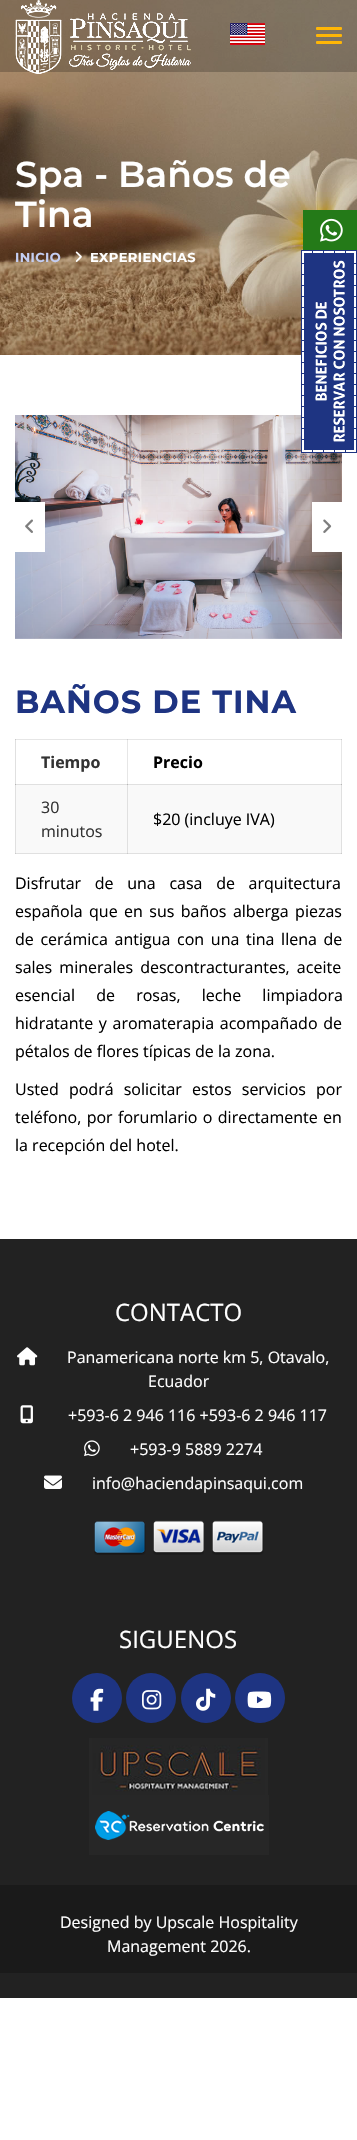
void draw(SkCanvas* canvas) {
  SkPaint paint;
  paint.setAntiAlias(true);
  auto face = [&](const char* family, int weight, float size, bool italic = false) {
    SkFontStyle style(weight, SkFontStyle::kNormal_Width,
      italic ? SkFontStyle::kItalic_Slant : SkFontStyle::kUpright_Slant);
    SkFont result(fontMgr->matchFamilyStyle(family, style), size);
    result.setSubpixel(true);
    return result;
  };
  auto writeSpaced = [&](const char* s, float x, float y, const SkFont& font, const SkPaint& ink, float letter, float word) {
    std::vector<SkGlyphID> glyphs(font.countText(s, strlen(s), SkTextEncoding::kUTF8));
    std::vector<float> xs(glyphs.size());
    font.textToGlyphs(s, strlen(s), SkTextEncoding::kUTF8, glyphs);
    font.getXPos(glyphs, xs, x);
    float extra = 0;
    for (size_t i = 0; i < glyphs.size(); i++) {
      xs[i] += extra;
      extra += letter + word * (glyphs[i] == font.unicharToGlyph(' '));
    }
    canvas->drawTextBlob(SkTextBlob::MakeFromPosHGlyphs(glyphs, xs, y, font), 0, 0, ink);
  };
  auto paste = [&](const char* path, float x, float y, float w, float h) {
    auto image = SkImages::DeferredFromEncodedData(SkData::MakeFromFileName(path));
    canvas->drawImageRect(image, SkRect::MakeXYWH(x, y, w, h), SkSamplingOptions());
  };
  canvas->clear(0xffffffff);
  paste("img/3.png", 0, 0, 357, 355);
  paint.setColor(0x38000000);
  canvas->drawRect(SkRect::MakeXYWH(0, 0, 357, 72), paint);
  paste("img/1.png", 15, 0, 176, 74);
  paint.setColor(0xffffb606);
  canvas->drawRoundRect(SkRect::MakeXYWH(316, 27, 26, 3), 1, 1, paint);
  canvas->drawRoundRect(SkRect::MakeXYWH(316, 34, 26, 3), 1, 1, paint);
  canvas->drawRoundRect(SkRect::MakeXYWH(316, 41, 26, 3), 1, 1, paint);
  paste("img/2.png", 230, 23, 35, 22);
  paste("img/4.png", 75, 251, 7, 11);
  paint.setColor(0xff247a18);
  canvas->drawRect(SkRect::MakeXYWH(303, 210, 54, 40), paint);
  paste("img/5.png", 320, 218, 23, 24);
  paste("img/7.png", 15, 415, 327, 224);
  paste("img/6.png", 301, 250, 56, 203);
  paint.setColor(0xffffffff);
  canvas->drawRect(SkRect::MakeXYWH(15, 502, 30, 50), paint);
  paste("img/8.png", 25, 519, 8, 14);
  canvas->drawRect(SkRect::MakeXYWH(312, 502, 30, 50), paint);
  paste("img/9.png", 323, 519, 9, 14);
  {
    const struct { float x, y, w, h; SkColor color; } items[] = {
      {16, 785, 325, 68, 0xfff9f9f9},
      {127, 784, 1, 70, 0xffe0e0e0},
      {341, 784, 1, 70, 0xffe0e0e0},
      {15, 739, 1, 46, 0xffe0e0e0},
      {15, 784, 327, 1, 0xffe0e0e0},
      {127, 784, 1, 1, 0xffb6b6b6},
      {341, 784, 1, 1, 0xffb6b6b6},
      {15, 739, 1, 1, 0xffcacaca},
      {15, 784, 1, 70, 0xffe0e0e0},
      {15, 784, 1, 1, 0xffb6b6b6},
      {127, 739, 1, 45, 0xffe6e6e6},
      {341, 739, 1, 45, 0xffe6e6e6},
      {16, 739, 326, 1, 0xffe6e6e6},
      {127, 739, 1, 1, 0xffcfcfcf},
      {341, 739, 1, 1, 0xffcfcfcf},
      {15, 853, 327, 1, 0xffe0e0e0},
      {127, 853, 1, 1, 0xffcacaca},
      {341, 853, 1, 1, 0xffcacaca},
      {15, 853, 1, 1, 0xffcacaca},
      {0, 1239, 357, 759, 0xff222222},
    };
    for (auto [x, y, w, h, color] : items) {
      paint.setColor(color);
      canvas->drawRect(SkRect::MakeXYWH(x, y, w, h), paint);
    }
  }
  paste("img/10.png", 17, 1347, 21, 19);
  paste("img/11.png", 20, 1405, 13, 19);
  paste("img/12.png", 84, 1440, 16, 17);
  paste("img/13.png", 44, 1475, 18, 14);
  paste("img/14.png", 94, 1521, 52, 34);
  paste("img/15.png", 153, 1520, 51, 35);
  paste("img/16.png", 212, 1520, 52, 35);
  paint.setColor(0xff1e3482);
  canvas->drawCircle(97, 1698, 25, paint);
  paste("img/17.png", 90, 1688, 14, 23);
  canvas->drawCircle(151, 1698, 25, paint);
  paste("img/18.png", 142, 1690, 20, 20);
  canvas->drawCircle(206, 1698, 25, paint);
  paste("img/19.png", 196, 1688, 20, 23);
  canvas->drawCircle(260, 1698, 25, paint);
  paste("img/20.png", 247, 1691, 25, 17);
  paste("img/21.png", 89, 1738, 179, 57);
  paste("img/22.png", 89, 1795, 180, 60);
  paint.setColor(0xff1a1a1a);
  canvas->drawRect(SkRect::MakeXYWH(0, 1885, 357, 88), paint);
  auto f0 = face("Montserrat", 600, 36);
  paint.setColor(0xffffffff);
  canvas->drawString("Spa - Baños de", 15, 187, f0, paint);
  canvas->drawString("Tina", 15, 227, f0, paint);
  auto f1 = face("Montserrat", 700, 13);
  paint.setColor(0xffc4cef2);
  writeSpaced("INICIO", 15, 262, f1, paint, 0.4f, 0);
  paint.setColor(0xffffffff);
  writeSpaced("EXPERIENCIAS", 90, 262, f1, paint, 0.4f, 0);
  auto f2 = face("Montserrat", 700, 32);
  paint.setColor(0xff1e3482);
  writeSpaced("BAÑOS DE TINA", 15, 713, f2, paint, 1, 0);
  auto f3 = face("Open Sans", 700, 16);
  paint.setColor(0xff333333);
  canvas->drawString("Tiempo", 41, 768, f3, paint);
  paint.setColor(0xff000000);
  canvas->drawString("Precio", 153, 768, f3, paint);
  auto f4 = face("Open Sans", 400, 16);
  paint.setColor(0xff333333);
  canvas->drawString("30", 41, 813, f4, paint);
  canvas->drawString("minutos", 41, 837, f4, paint);
  paint.setColor(0xff000000);
  canvas->drawString("$20 (incluye IVA)", 153, 825, f4, paint);
  writeSpaced("Disfrutar de una casa de arquitectura", 15, 889, f4, paint, 0, 9.5f);
  writeSpaced("española que en sus baños alberga piezas", 15, 917, f4, paint, 0, 2.25f);
  writeSpaced("de cerámica antigua con una tina llena de", 15, 945, f4, paint, 0, 2.5f);
  writeSpaced("sales minerales descontracturantes, aceite", 15, 973, f4, paint, 0, 3);
  writeSpaced("esencial de rosas, leche limpiadora", 15, 1001, f4, paint, 0, 17);
  writeSpaced("hidratante y aromaterapia acompañado de", 15, 1029, f4, paint, 0, 1.5f);
  canvas->drawString("pétalos de flores típicas de la zona.", 15, 1057, f4, paint);
  writeSpaced("Usted podrá solicitar estos servicios por", 15, 1095, f4, paint, 0, 6);
  writeSpaced("teléfono, por forumlario o directamente en", 15, 1123, f4, paint, 0, 1.25f);
  canvas->drawString("la recepción del hotel.", 15, 1151, f4, paint);
  auto f5 = face("Open Sans", 400, 24);
  paint.setColor(0xffffffff);
  canvas->drawString("CONTACTO", 115, 1321, f5, paint);
  {
    const struct { const char* s; float x, y; } items[] = {
      {"Panamericana norte km 5, Otavalo,", 67, 1363},
      {"Ecuador", 148, 1387},
      {"+593-6 2 946 116 +593-6 2 946 117", 68, 1421},
      {"+593-9 5889 2274", 130, 1455},
      {"info@haciendapinsaqui.com", 92, 1489},
    };
    for (auto [s, x, y] : items) {
      canvas->drawString(s, x, y, f4, paint);
    }
  }
  canvas->drawString("SIGUENOS", 119, 1648, f5, paint);
  canvas->drawString("Designed by Upscale Hospitality", 60, 1928, f4, paint);
  canvas->drawString("Management 2026.", 107, 1952, f4, paint);
}
